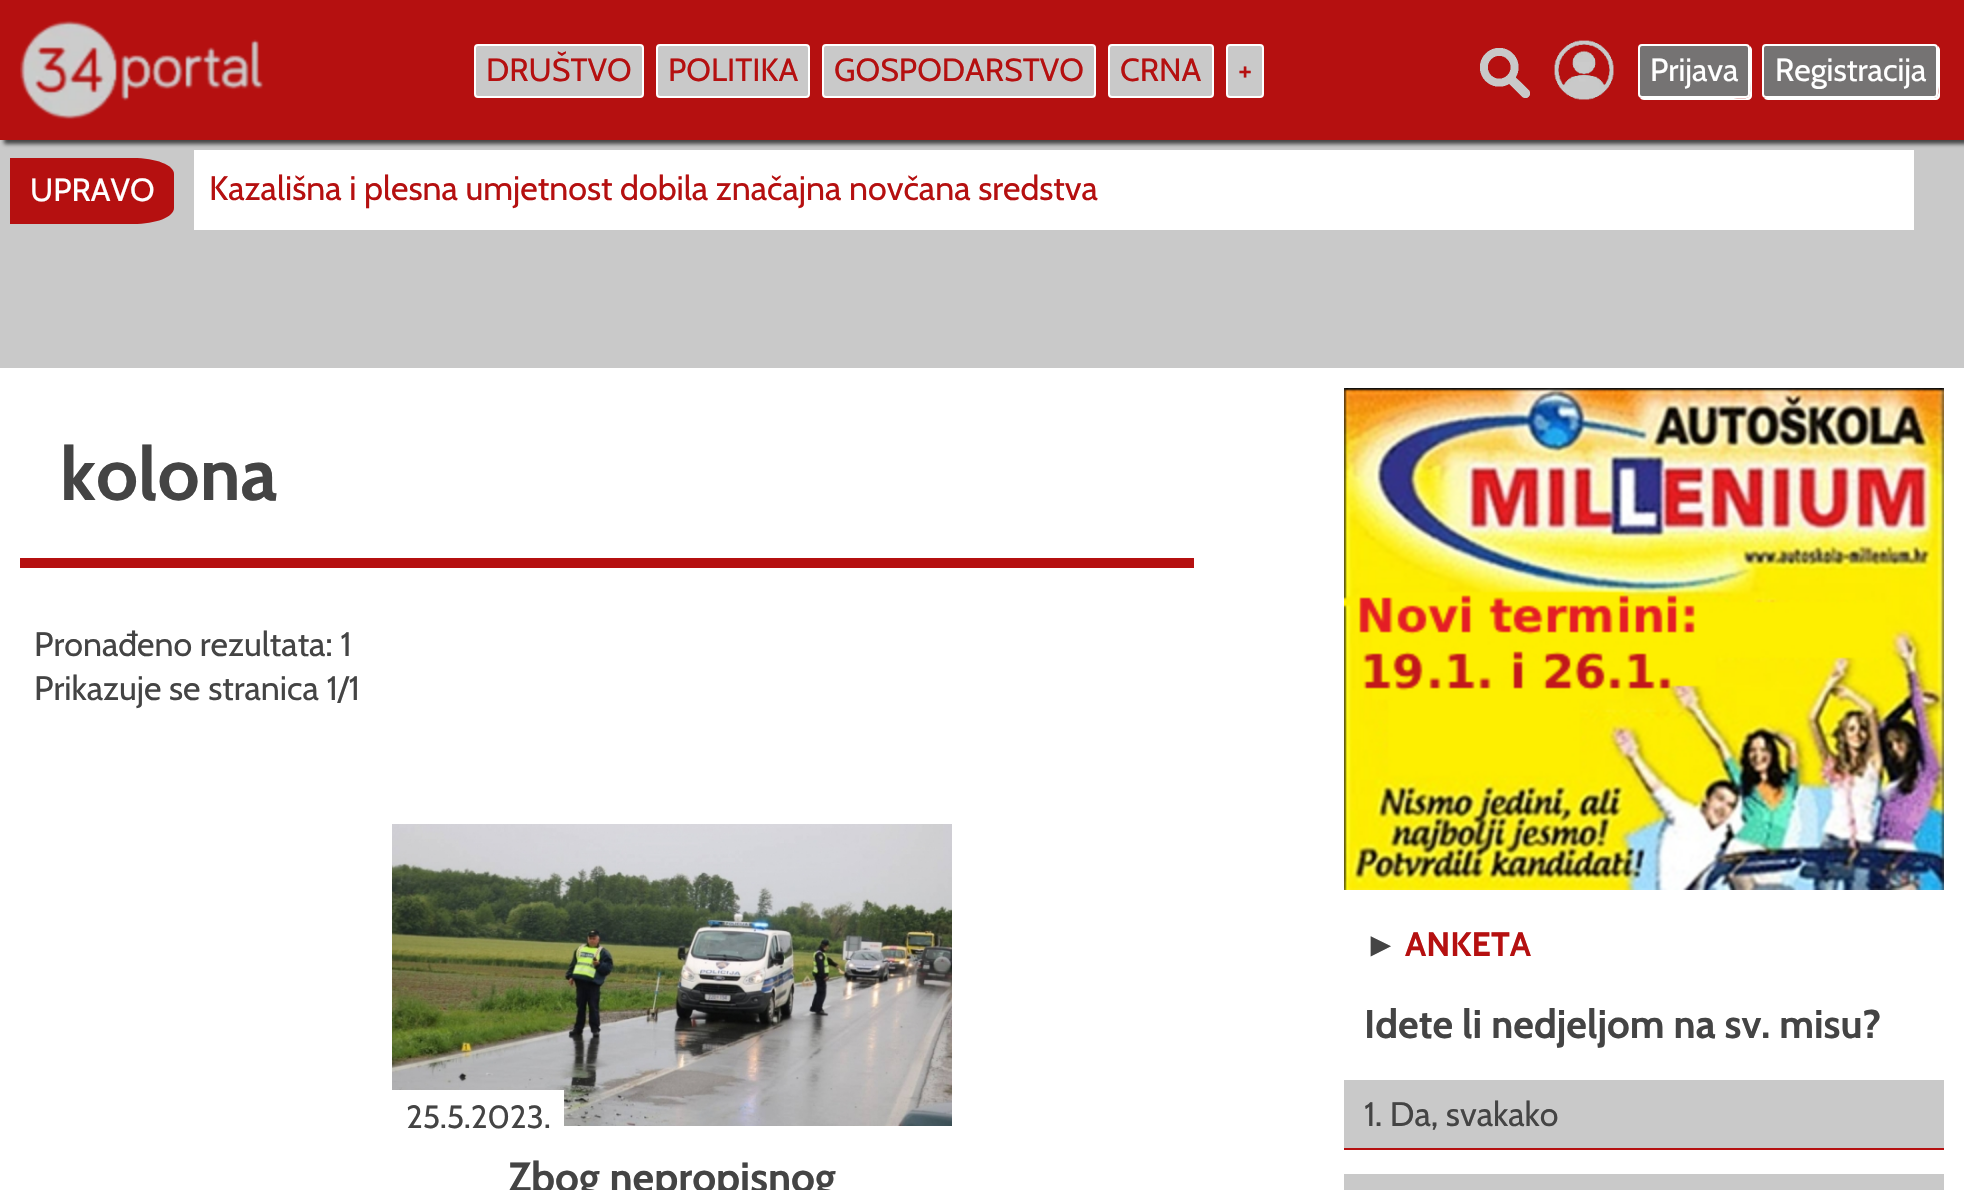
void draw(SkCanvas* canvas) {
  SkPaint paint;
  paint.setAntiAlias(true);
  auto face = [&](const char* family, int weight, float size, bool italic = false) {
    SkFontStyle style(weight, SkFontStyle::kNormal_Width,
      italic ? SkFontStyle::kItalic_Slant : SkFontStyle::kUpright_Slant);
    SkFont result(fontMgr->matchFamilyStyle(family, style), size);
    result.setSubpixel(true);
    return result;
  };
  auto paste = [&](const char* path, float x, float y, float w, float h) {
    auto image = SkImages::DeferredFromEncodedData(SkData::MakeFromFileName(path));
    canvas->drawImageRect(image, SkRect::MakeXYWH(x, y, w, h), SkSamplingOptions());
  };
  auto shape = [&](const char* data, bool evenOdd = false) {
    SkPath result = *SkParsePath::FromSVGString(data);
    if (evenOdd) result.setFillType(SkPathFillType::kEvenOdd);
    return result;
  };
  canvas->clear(0xffc9c9c9);
  paint.setColor(0xffffffff);
  canvas->drawRect(SkRect::MakeXYWH(194, 150, 1720, 80), paint);
  paint.setColor(0xff444444);
  paint.setMaskFilter(SkMaskFilter::MakeBlur(kNormal_SkBlurStyle, 2));
  canvas->drawRect(SkRect::MakeXYWH(4, 4, 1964, 140), paint);
  paint.setMaskFilter(nullptr);
  paint.setColor(0xffb51010);
  canvas->drawRect(SkRect::MakeXYWH(0, 0, 1964, 140), paint);
  paste("img/1.png", 20, 20, 244, 100);
  paint.setColor(0xffc9c9c9);
  canvas->drawRoundRect(SkRect::MakeXYWH(475, 45, 168, 52), 3, 3, paint);
  paint.setStroke(true);
  paint.setStrokeWidth(2);
  paint.setColor(0xffffffff);
  canvas->drawRoundRect(SkRect::MakeXYWH(475, 45, 168, 52), 3, 3, paint);
  paint.setStroke(false);
  paint.setColor(0xffc9c9c9);
  canvas->drawRoundRect(SkRect::MakeXYWH(657, 45, 152, 52), 3, 3, paint);
  paint.setStroke(true);
  paint.setColor(0xffffffff);
  canvas->drawRoundRect(SkRect::MakeXYWH(657, 45, 152, 52), 3, 3, paint);
  paint.setStroke(false);
  paint.setColor(0xffc9c9c9);
  canvas->drawRoundRect(SkRect::MakeXYWH(823, 45, 272, 52), 3, 3, paint);
  paint.setStroke(true);
  paint.setColor(0xffffffff);
  canvas->drawRoundRect(SkRect::MakeXYWH(823, 45, 272, 52), 3, 3, paint);
  paint.setStroke(false);
  paint.setColor(0xffc9c9c9);
  canvas->drawRoundRect(SkRect::MakeXYWH(1109, 45, 104, 52), 3, 3, paint);
  paint.setStroke(true);
  paint.setColor(0xffffffff);
  canvas->drawRoundRect(SkRect::MakeXYWH(1109, 45, 104, 52), 3, 3, paint);
  paint.setStroke(false);
  paint.setColor(0xffc9c9c9);
  canvas->drawRoundRect(SkRect::MakeXYWH(1227, 45, 36, 52), 3, 3, paint);
  paint.setStroke(true);
  paint.setColor(0xffffffff);
  canvas->drawRoundRect(SkRect::MakeXYWH(1227, 45, 36, 52), 3, 3, paint);
  paste("img/2.png", 1480, 48, 50, 50);
  paste("img/3.png", 1554, 40, 60, 60);
  paint.setStroke(false);
  canvas->drawPath(shape("M1640 98C1641 99 1642 100 1644 100H1748C1750 100 1752 98 1752 96V50C1752 48 1751 47 1750 46V79C1750 102 1753 98 1729 98Z"), paint);
  paint.setColor(0xff757373);
  canvas->drawRoundRect(SkRect::MakeXYWH(1639, 45, 110, 52), 3, 3, paint);
  paint.setStroke(true);
  paint.setColor(0xffffffff);
  canvas->drawRoundRect(SkRect::MakeXYWH(1639, 45, 110, 52), 3, 3, paint);
  paint.setStroke(false);
  canvas->drawPath(shape("M1764 98C1765 99 1766 100 1768 100H1936C1938 100 1940 98 1940 96V50C1940 48 1939 47 1938 46V86C1938 89 1940 98 1934 98Z"), paint);
  paint.setColor(0xff757373);
  canvas->drawRoundRect(SkRect::MakeXYWH(1763, 45, 174, 52), 3, 3, paint);
  paint.setStroke(true);
  paint.setColor(0xffffffff);
  canvas->drawRoundRect(SkRect::MakeXYWH(1763, 45, 174, 52), 3, 3, paint);
  paint.setStroke(false);
  paint.setColor(0xffb51010);
  canvas->drawPath(shape("M10 158H133C156 158 174 165 174 174V208C174 217 156 224 133 224H10Z"), paint);
  paint.setColor(0xffffffff);
  canvas->drawRect(SkRect::MakeXYWH(0, 368, 1964, 822), paint);
  paint.setColor(0xffb51010);
  canvas->drawRect(SkRect::MakeXYWH(20, 558, 1174, 10), paint);
  paste("img/4.png", 392, 824, 560, 302);
  paint.setColor(0xffffffff);
  canvas->drawRect(SkRect::MakeXYWH(392, 1090, 172, 36), paint);
  paste("img/5.png", 1344, 388, 600, 502);
  {
    const struct { float x, y, w, h; SkColor color; } items[] = {
      {1344, 1080, 600, 68, 0xffc9c9c9},
      {1344, 1148, 600, 2, 0xffb51010},
      {1344, 1174, 600, 16, 0xffc9c9c9},
    };
    for (auto [x, y, w, h, color] : items) {
      paint.setColor(color);
      canvas->drawRect(SkRect::MakeXYWH(x, y, w, h), paint);
    }
  }
  auto f0 = face("Cabin", 400, 32);
  paint.setColor(0xffb51010);
  {
    const struct { const char* s; float x, y; } items[] = {
      {"DRUŠTVO", 486, 81},
      {"POLITIKA", 668, 81},
      {"GOSPODARSTVO", 834, 81},
      {"CRNA", 1120, 81},
      {"+", 1238, 81},
    };
    for (auto [s, x, y] : items) {
      canvas->drawString(s, x, y, f0, paint);
    }
  }
  paint.setColor(0xffffffff);
  {
    const struct { const char* s; float x, y; } items[] = {
      {"Prijava", 1650, 81},
      {"Registracija", 1775, 81},
      {"UPRAVO", 30, 201},
    };
    for (auto [s, x, y] : items) {
      canvas->drawString(s, x, y, f0, paint);
    }
  }
  auto f1 = face("Cabin", 400, 34);
  paint.setColor(0xffb51010);
  canvas->drawString("Kazališna i plesna umjetnost dobila značajna novčana sredstva", 209, 200, f1, paint);
  auto f2 = face("Cabin", 700, 74);
  paint.setColor(0xff444444);
  canvas->drawString("kolona", 60, 500, f2, paint);
  canvas->drawString("Pronađeno rezultata: 1", 34, 656, f1, paint);
  canvas->drawString("Prikazuje se stranica 1/1", 34, 700, f1, paint);
  canvas->drawString("25.5.2023.", 406, 1128, f0, paint);
  auto f3 = face("Cabin", 700, 42);
  canvas->drawString("Zbog nepropisnog", 508, 1192, f3, paint);
  auto f4 = face("Liberation Sans", 700, 34);
  canvas->drawString("►", 1364, 956, f4, paint);
  auto f5 = face("Cabin", 700, 34);
  paint.setColor(0xffb51010);
  canvas->drawString("ANKETA", 1405, 956, f5, paint);
  auto f6 = face("Cabin", 700, 40);
  paint.setColor(0xff444444);
  canvas->drawString("Idete li nedjeljom na sv. misu?", 1364, 1038, f6, paint);
  canvas->drawString("1. Da, svakako", 1364, 1126, f1, paint);
}
